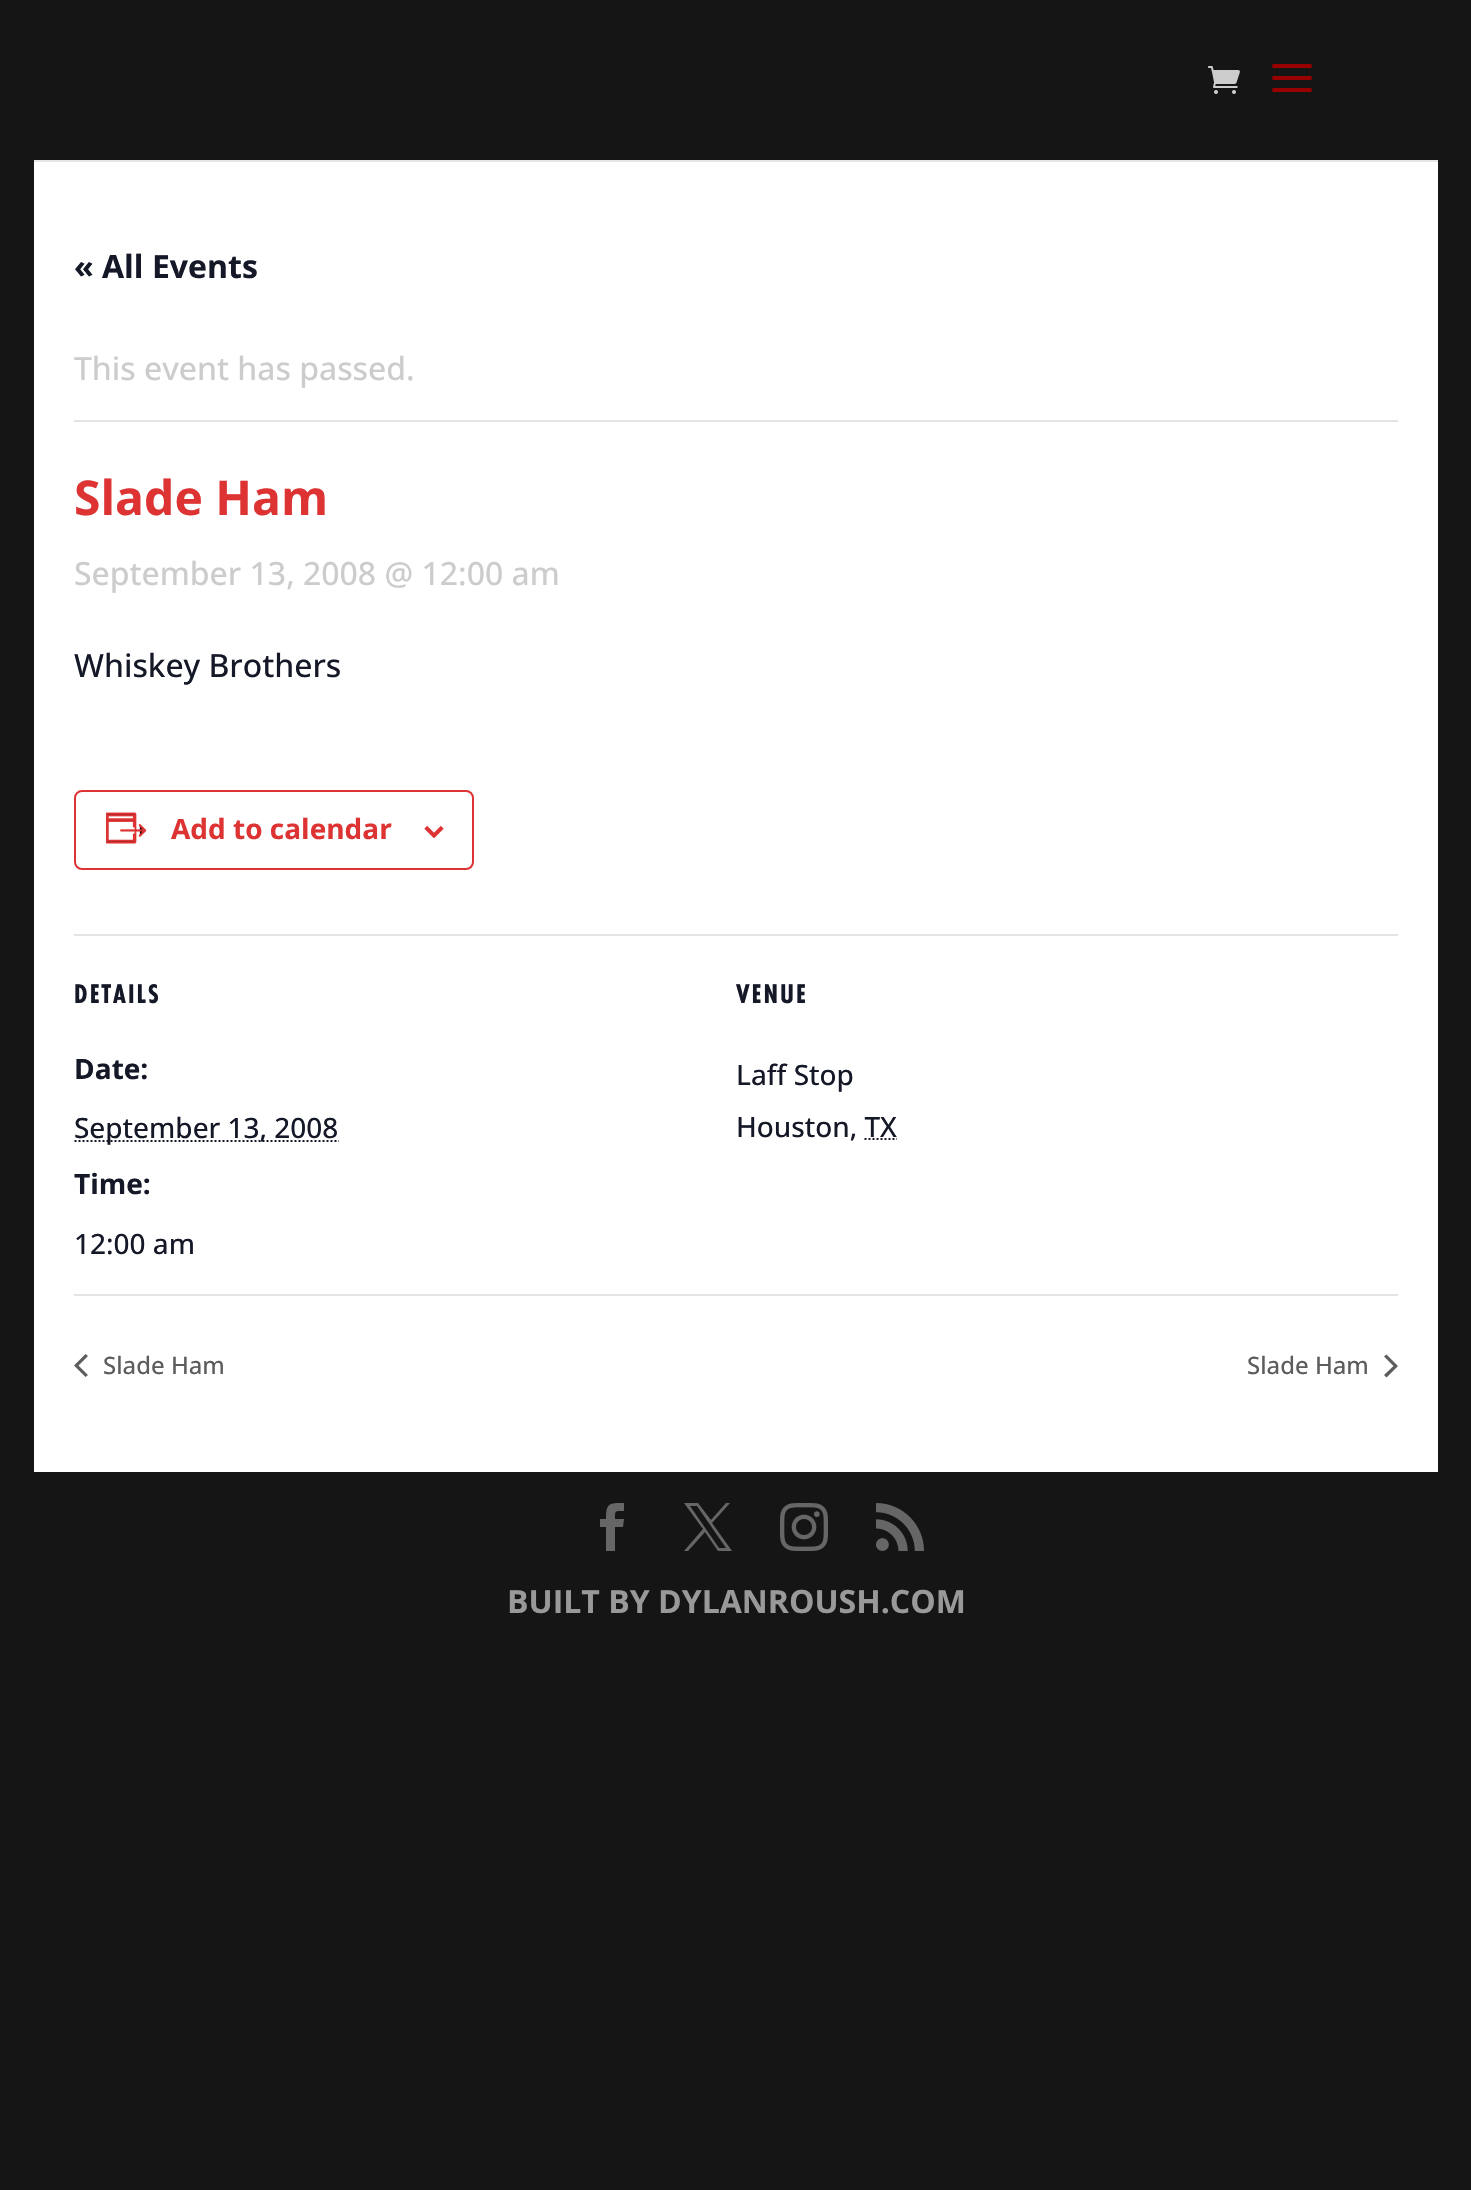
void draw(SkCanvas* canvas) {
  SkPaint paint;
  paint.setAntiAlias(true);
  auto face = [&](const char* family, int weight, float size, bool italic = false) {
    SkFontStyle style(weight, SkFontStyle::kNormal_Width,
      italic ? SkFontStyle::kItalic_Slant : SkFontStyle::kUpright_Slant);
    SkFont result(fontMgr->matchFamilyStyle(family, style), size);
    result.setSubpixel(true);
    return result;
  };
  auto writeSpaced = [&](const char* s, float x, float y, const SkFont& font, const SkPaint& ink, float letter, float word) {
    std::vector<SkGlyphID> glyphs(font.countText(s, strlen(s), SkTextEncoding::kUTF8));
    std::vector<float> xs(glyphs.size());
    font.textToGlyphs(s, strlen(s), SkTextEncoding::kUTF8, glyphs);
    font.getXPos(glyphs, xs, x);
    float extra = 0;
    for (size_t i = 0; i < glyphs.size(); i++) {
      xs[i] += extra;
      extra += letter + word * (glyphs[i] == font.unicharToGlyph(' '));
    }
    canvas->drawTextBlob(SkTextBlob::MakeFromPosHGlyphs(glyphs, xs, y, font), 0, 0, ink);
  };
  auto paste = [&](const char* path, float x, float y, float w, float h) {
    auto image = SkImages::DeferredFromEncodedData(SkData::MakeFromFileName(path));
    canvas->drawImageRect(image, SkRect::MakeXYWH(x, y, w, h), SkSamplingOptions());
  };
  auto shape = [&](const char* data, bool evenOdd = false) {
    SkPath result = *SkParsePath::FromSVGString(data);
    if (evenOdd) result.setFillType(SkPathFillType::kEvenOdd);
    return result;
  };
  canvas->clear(0xff151515);
  paste("img/1.png", 1208, 66, 32, 28);
  paste("img/2.png", 1272, 64, 40, 28);
  {
    const struct { float x, y, w, h; SkColor color; } items[] = {
      {34, 162, 1404, 1310, 0xffffffff},
      {34, 160, 1404, 2, 0xffe6e6e6},
      {74, 420, 1324, 2, 0xffe4e4e4},
    };
    for (auto [x, y, w, h, color] : items) {
      paint.setColor(color);
      canvas->drawRect(SkRect::MakeXYWH(x, y, w, h), paint);
    }
  }
  paint.setStroke(true);
  paint.setStrokeWidth(2);
  paint.setColor(0xffdd3333);
  canvas->drawRoundRect(SkRect::MakeXYWH(75, 791, 398, 78), 7, 7, paint);
  paste("img/3.png", 106, 812, 41, 32);
  paste("img/4.png", 424, 826, 20, 12);
  paint.setStroke(false);
  paint.setColor(0xffe4e4e4);
  canvas->drawRect(SkRect::MakeXYWH(74, 934, 1324, 2), paint);
  paint.setStroke(true);
  paint.setColor(0xff141827);
  paint.setPathEffect(SkDashPathEffect::Make({{2, 2}}, 0));
  canvas->drawPath(shape("M74.5 1141H339"), paint);
  paint.setPathEffect(nullptr);
  paint.setPathEffect(SkDashPathEffect::Make({{2, 2}}, 0));
  canvas->drawPath(shape("M864.5 1139H897"), paint);
  paint.setPathEffect(nullptr);
  paint.setStroke(false);
  paint.setColor(0xffe4e4e4);
  canvas->drawRect(SkRect::MakeXYWH(74, 1294, 1324, 2), paint);
  paint.setColor(0xff5d5d5d);
  canvas->drawPath(shape("M88 1375L85.5 1377L74 1365.5L85.5 1354L88 1356L78.5 1365.5Z"), paint);
  canvas->drawPath(shape("M1384 1356.5L1386.5 1354.5L1398 1366L1386.5 1377.5L1384 1375L1393.5 1366Z"), paint);
  paint.setColor(0xff666666);
  canvas->drawPath(shape("M606 1551H615V1527H623L624 1519H615C615 1510 615 1511 624 1511V1503C609 1503 606 1503 606 1519H600V1527H606Z"), paint);
  canvas->drawPath(shape("M684 1503L703 1529L684 1551H688L705 1532L718 1551H732L712 1523L730 1503H726L711 1520L698 1503ZM690 1506H697L726 1548H719Z"), paint);
  paste("img/5.png", 780, 1503, 48, 48);
  paste("img/6.png", 876, 1503, 48, 48);
  auto f0 = face("Open Sans", 700, 32);
  paint.setColor(0xff141827);
  canvas->drawString("« All Events", 74, 278, f0, paint);
  auto f1 = face("Open Sans", 500, 32);
  paint.setColor(0xffcccccc);
  canvas->drawString("This event has passed.", 74, 380, f1, paint);
  auto f2 = face("Open Sans", 700, 48);
  paint.setColor(0xffdd3333);
  canvas->drawString("Slade Ham", 74, 515, f2, paint);
  paint.setColor(0xffcccccc);
  canvas->drawString("September 13, 2008 @ 12:00 am", 74, 585, f1, paint);
  paint.setColor(0xff141827);
  canvas->drawString("Whiskey Brothers", 74, 677, f1, paint);
  auto f3 = face("Open Sans", 700, 28);
  paint.setColor(0xffdd3333);
  canvas->drawString("Add to calendar", 171, 839, f3, paint);
  auto f4 = face("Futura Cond", 700, 28);
  paint.setColor(0xff141827);
  writeSpaced("DETAILS", 74, 1003, f4, paint, 2, 0);
  canvas->drawString("Date:", 74, 1079, f3, paint);
  auto f5 = face("Open Sans", 500, 28);
  canvas->drawString("September 13, 2008", 74, 1138, f5, paint);
  canvas->drawString("Time:", 74, 1194, f3, paint);
  canvas->drawString("12:00 am", 74, 1254, f5, paint);
  writeSpaced("VENUE", 736, 1003, f4, paint, 2, 0);
  canvas->drawString("Laff Stop", 736, 1085, f5, paint);
  canvas->drawString("Houston, TX", 736, 1137, f5, paint);
  auto f6 = face("Open Sans", 500, 24);
  paint.setColor(0xff5d5d5d);
  canvas->drawString("Slade Ham", 103, 1374, f6, paint);
  canvas->drawString("Slade Ham", 1247, 1374, f6, paint);
  paint.setColor(0xff999999);
  canvas->drawString("BUILT BY DYLANROUSH.COM", 507, 1613, f0, paint);
}
